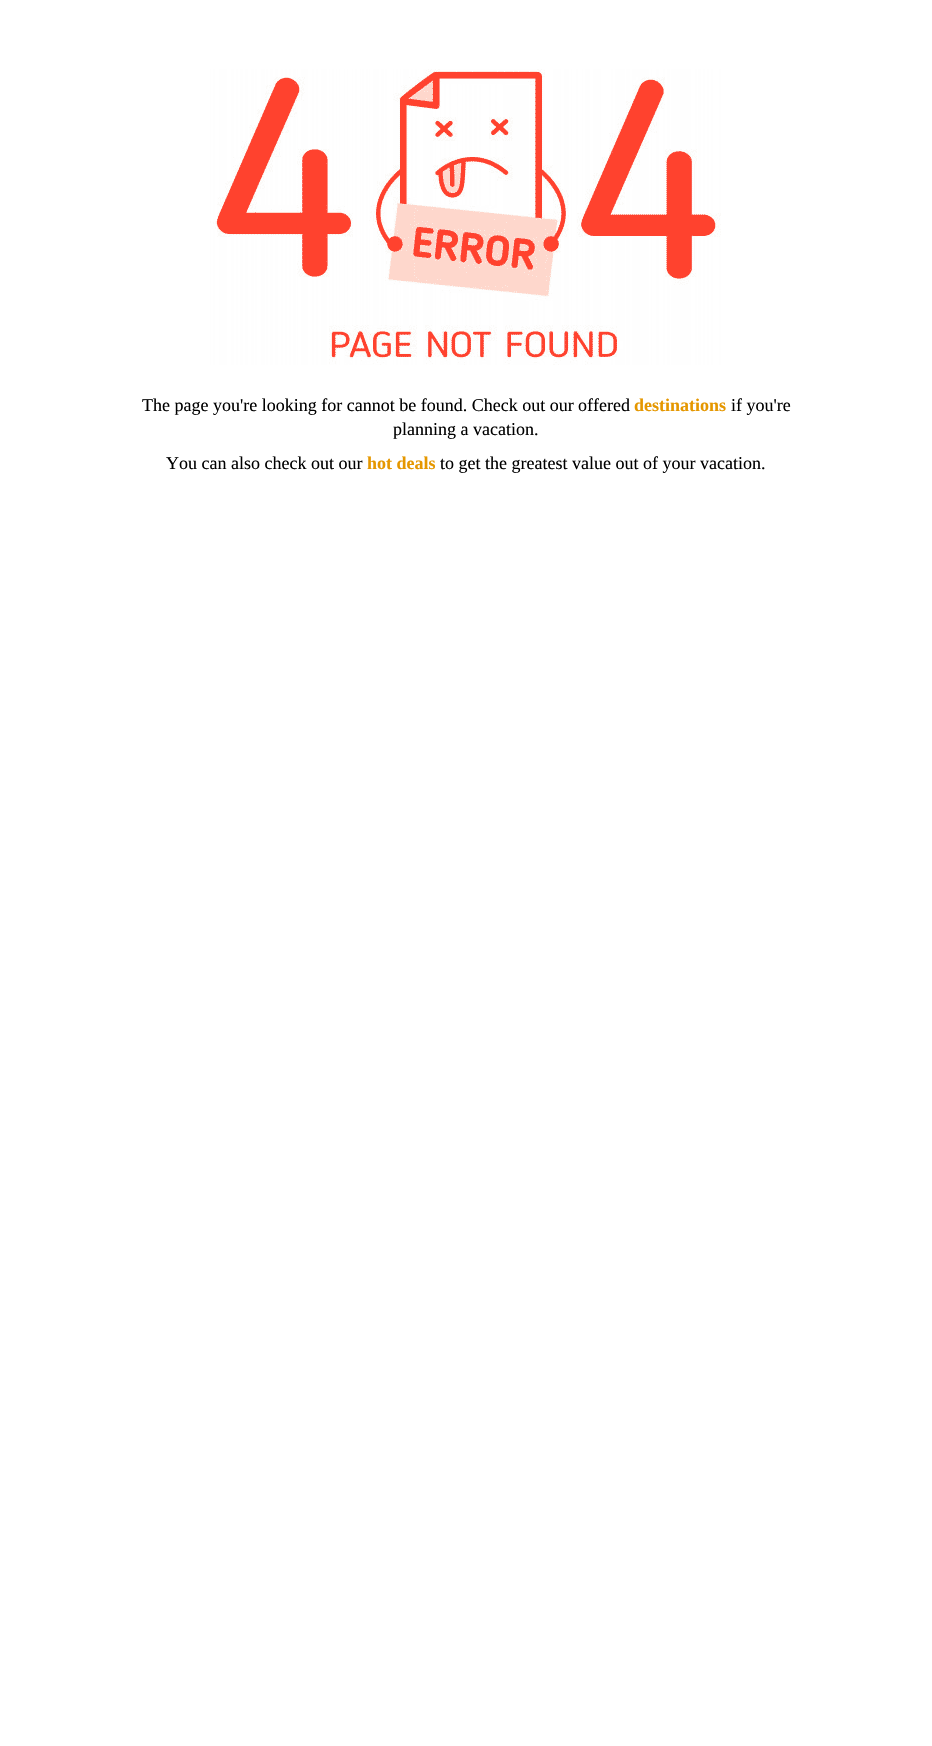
void draw(SkCanvas* canvas) {
  SkPaint paint;
  paint.setAntiAlias(true);
  auto face = [&](const char* family, int weight, float size, bool italic = false) {
    SkFontStyle style(weight, SkFontStyle::kNormal_Width,
      italic ? SkFontStyle::kItalic_Slant : SkFontStyle::kUpright_Slant);
    SkFont result(fontMgr->matchFamilyStyle(family, style), size);
    result.setSubpixel(true);
    return result;
  };
  auto paste = [&](const char* path, float x, float y, float w, float h) {
    auto image = SkImages::DeferredFromEncodedData(SkData::MakeFromFileName(path));
    canvas->drawImageRect(image, SkRect::MakeXYWH(x, y, w, h), SkSamplingOptions());
  };
  canvas->clear(0xffffffff);
  paste("img/1.png", 210, 69, 511, 296);
  auto f0 = face("Liberation Serif", 400, 18);
  paint.setColor(0xff000000);
  canvas->drawString("The page you're looking for cannot be found. Check out our offered", 142, 411, f0, paint);
  auto f1 = face("Liberation Serif", 700, 18);
  paint.setColor(0xffe59700);
  canvas->drawString("destinations", 634, 411, f1, paint);
  paint.setColor(0xff000000);
  {
    const struct { const char* s; float x, y; } items[] = {
      {"if you're", 731, 411},
      {"planning a vacation.", 393, 435},
      {"You can also check out our", 166, 469},
    };
    for (auto [s, x, y] : items) {
      canvas->drawString(s, x, y, f0, paint);
    }
  }
  paint.setColor(0xffe59700);
  canvas->drawString("hot deals", 367, 469, f1, paint);
  paint.setColor(0xff000000);
  canvas->drawString("to get the greatest value out of your vacation.", 440, 469, f0, paint);
}
